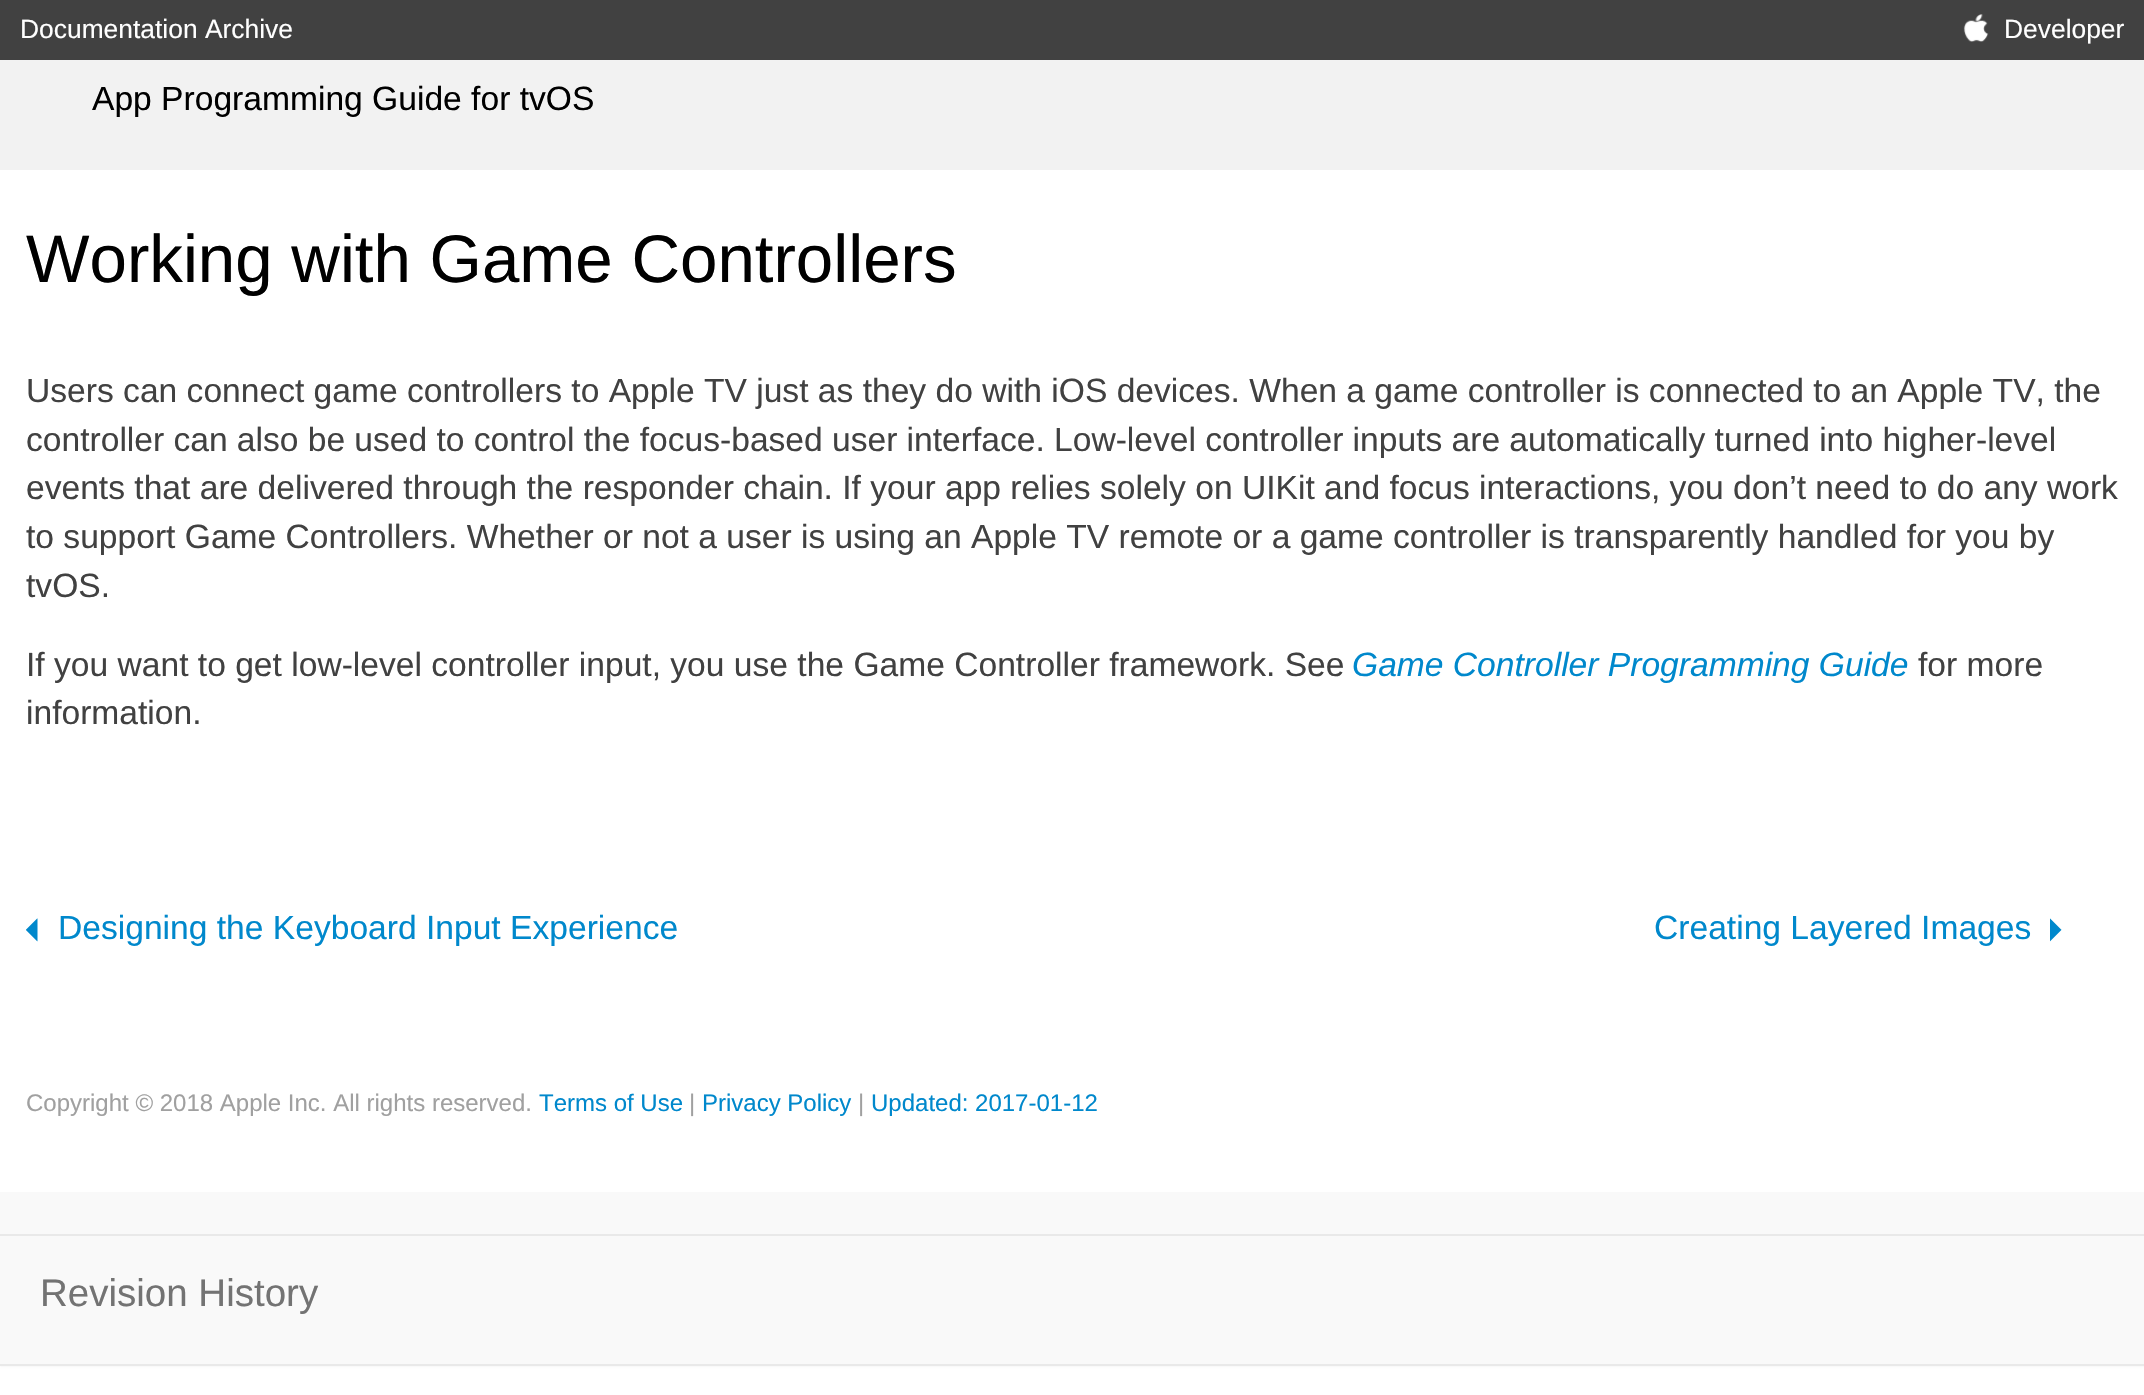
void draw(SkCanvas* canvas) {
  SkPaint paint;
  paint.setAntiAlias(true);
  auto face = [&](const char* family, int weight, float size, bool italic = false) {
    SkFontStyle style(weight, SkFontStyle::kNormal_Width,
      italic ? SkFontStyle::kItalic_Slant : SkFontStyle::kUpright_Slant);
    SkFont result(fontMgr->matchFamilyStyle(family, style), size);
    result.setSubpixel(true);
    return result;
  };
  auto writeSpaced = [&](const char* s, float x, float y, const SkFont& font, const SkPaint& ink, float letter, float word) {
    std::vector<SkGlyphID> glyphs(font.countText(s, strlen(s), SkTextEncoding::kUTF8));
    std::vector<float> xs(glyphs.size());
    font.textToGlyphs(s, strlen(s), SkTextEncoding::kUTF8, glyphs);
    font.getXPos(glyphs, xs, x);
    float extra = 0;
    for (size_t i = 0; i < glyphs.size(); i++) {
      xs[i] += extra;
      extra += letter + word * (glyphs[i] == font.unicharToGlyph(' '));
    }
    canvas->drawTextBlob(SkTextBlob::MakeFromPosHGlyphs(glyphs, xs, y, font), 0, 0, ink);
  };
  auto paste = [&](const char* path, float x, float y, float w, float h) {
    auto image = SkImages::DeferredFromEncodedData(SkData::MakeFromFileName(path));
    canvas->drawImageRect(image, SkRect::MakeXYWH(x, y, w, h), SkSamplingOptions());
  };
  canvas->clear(0xffffffff);
  paint.setColor(0xff414141);
  canvas->drawRect(SkRect::MakeXYWH(0, 0, 2144, 60), paint);
  paste("img/1.png", 1963, 14, 26, 28);
  paint.setColor(0x12000000);
  paint.setMaskFilter(SkMaskFilter::MakeBlur(kNormal_SkBlurStyle, 1));
  canvas->drawRect(SkRect::MakeXYWH(0, 170, 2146, 1196), paint);
  paint.setMaskFilter(nullptr);
  paint.setColor(0xfff2f2f2);
  canvas->drawRect(SkRect::MakeXYWH(0, 60, 2144, 110), paint);
  paint.setColor(0xffffffff);
  canvas->drawRect(SkRect::MakeXYWH(0, 170, 2144, 1022), paint);
  paste("img/2.png", 26, 918, 12, 24);
  paste("img/3.png", 2050, 918, 12, 24);
  {
    const struct { float x, y, w, h; SkColor color; } items[] = {
      {0, 1192, 2144, 172, 0xfff9f9f9},
      {0, 1234, 2144, 2, 0xffe9e9e9},
      {0, 1364, 2144, 2, 0xffe9e9e9},
    };
    for (auto [x, y, w, h, color] : items) {
      paint.setColor(color);
      canvas->drawRect(SkRect::MakeXYWH(x, y, w, h), paint);
    }
  }
  auto f0 = face("Liberation Sans", 400, 26.4f);
  paint.setColor(0xffffffff);
  canvas->drawString("Documentation Archive", 20, 38, f0, paint);
  canvas->drawString("Developer", 2004, 38, f0, paint);
  auto f1 = face("Liberation Sans", 400, 33.6f);
  paint.setColor(0xff000000);
  canvas->drawString("App Programming Guide for tvOS", 92, 110, f1, paint);
  auto f2 = face("Liberation Sans", 400, 67.25f);
  canvas->drawString("Working with Game Controllers", 26, 282, f2, paint);
  paint.setColor(0xff414141);
  canvas->drawString("Users can connect game controllers to Apple TV just as they do with iOS devices. When a game controller is connected to an Apple TV, the", 26, 402, f1, paint);
  writeSpaced("controller can also be used to control the focus-based user interface. Low-level controller inputs are automatically turned into higher-level", 26, 451, f1, paint, 0, -0.1f);
  {
    const struct { const char* s; float x, y; } items[] = {
      {"events that are delivered through the responder chain. If your app relies solely on UIKit and focus interactions, you don’t need to do any work", 26, 499},
      {"to support Game Controllers. Whether or not a user is using an Apple TV remote or a game controller is transparently handled for you by", 26, 548},
      {"tvOS.", 26, 597},
      {"If you want to get low-level controller input, you use the Game Controller framework. See", 26, 676},
    };
    for (auto [s, x, y] : items) {
      canvas->drawString(s, x, y, f1, paint);
    }
  }
  auto f3 = face("Liberation Sans", 400, 33.6f, true);
  paint.setColor(0xff0088cc);
  canvas->drawString("Game Controller Programming Guide", 1352, 676, f3, paint);
  paint.setColor(0xff414141);
  canvas->drawString("for more", 1918, 676, f1, paint);
  canvas->drawString("information.", 26, 724, f1, paint);
  paint.setColor(0xff0088cc);
  canvas->drawString("Designing the Keyboard Input Experience", 58, 939, f1, paint);
  canvas->drawString("Creating Layered Images", 1654, 939, f1, paint);
  auto f4 = face("Liberation Sans", 400, 24);
  paint.setColor(0xffa0a0a0);
  canvas->drawString("Copyright © 2018 Apple Inc. All rights reserved.", 26, 1111, f4, paint);
  paint.setColor(0xff0088cc);
  canvas->drawString("Terms of Use", 539, 1111, f4, paint);
  paint.setColor(0xffa0a0a0);
  canvas->drawString("|", 689, 1111, f4, paint);
  paint.setColor(0xff0088cc);
  canvas->drawString("Privacy Policy", 702, 1111, f4, paint);
  paint.setColor(0xffa0a0a0);
  canvas->drawString("|", 858, 1111, f4, paint);
  paint.setColor(0xff0088cc);
  canvas->drawString("Updated: 2017-01-12", 871, 1111, f4, paint);
  auto f5 = face("Liberation Sans", 400, 38.5f);
  paint.setColor(0xff737373);
  canvas->drawString("Revision History", 40, 1306, f5, paint);
}
